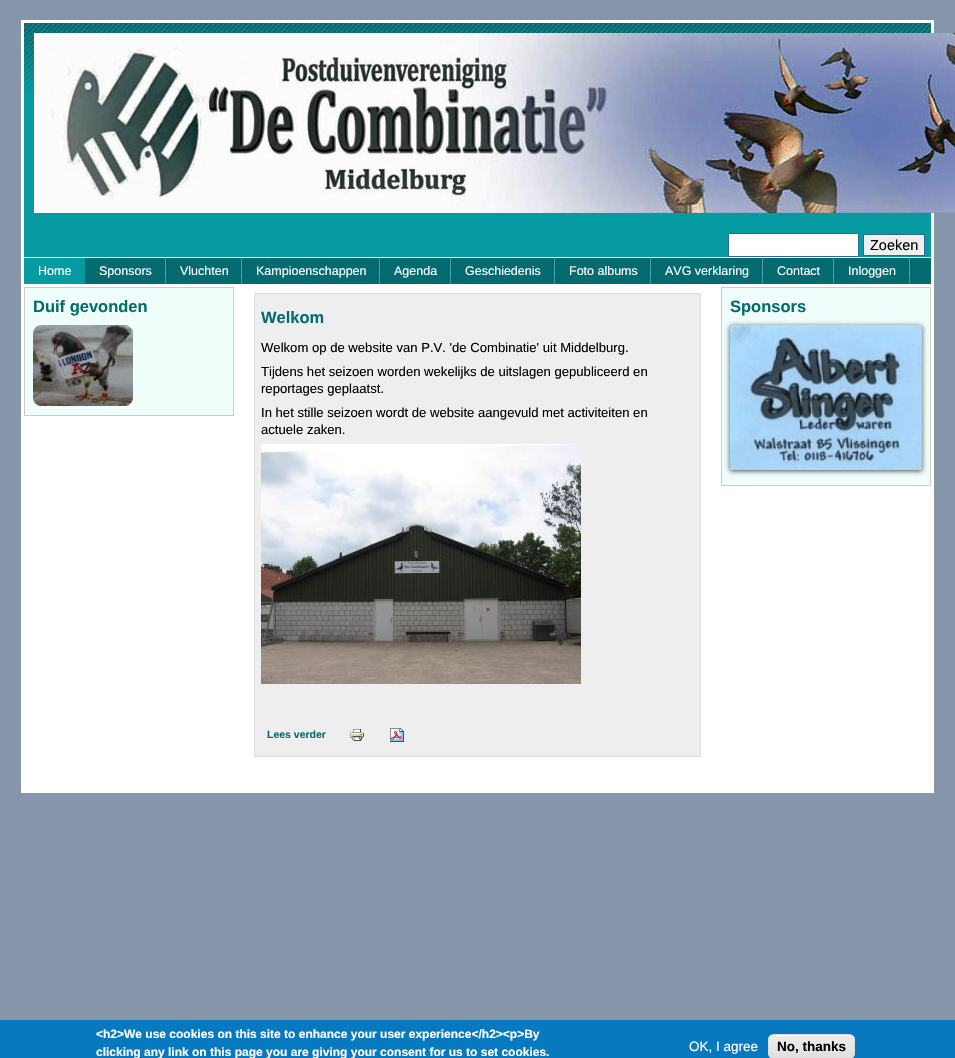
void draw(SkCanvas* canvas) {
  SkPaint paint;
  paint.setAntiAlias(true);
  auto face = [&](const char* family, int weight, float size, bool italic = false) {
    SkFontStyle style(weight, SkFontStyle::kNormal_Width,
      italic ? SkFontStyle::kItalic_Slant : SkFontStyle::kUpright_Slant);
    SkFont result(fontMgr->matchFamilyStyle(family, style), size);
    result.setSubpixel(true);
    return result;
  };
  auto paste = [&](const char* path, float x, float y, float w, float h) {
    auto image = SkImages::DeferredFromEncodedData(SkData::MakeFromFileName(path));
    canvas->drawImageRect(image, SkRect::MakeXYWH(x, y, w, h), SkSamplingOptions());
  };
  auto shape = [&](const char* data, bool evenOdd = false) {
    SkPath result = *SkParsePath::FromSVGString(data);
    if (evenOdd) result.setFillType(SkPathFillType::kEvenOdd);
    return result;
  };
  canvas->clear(0xff8596aa);
  paint.setColor(0xffffffff);
  canvas->drawRect(SkRect::MakeXYWH(21, 20, 913, 773), paint);
  paint.setColor(0xff069ba2);
  canvas->drawRect(SkRect::MakeXYWH(24, 97, 907, 160), paint);
  paste("img/1.png", 24, 23, 907, 74);
  paste("img/2.png", 34, 33, 921, 180);
  paint.setColor(0xffffffff);
  canvas->drawRect(SkRect::MakeXYWH(728.5f, 233.5f, 130, 23), paint);
  paint.setStroke(true);
  paint.setStrokeWidth(1);
  paint.setColor(0xff336699);
  canvas->drawRect(SkRect::MakeXYWH(728.5f, 233.5f, 130, 23), paint);
  paint.setStroke(false);
  paint.setColor(0xffefefef);
  canvas->drawRect(SkRect::MakeXYWH(863.5f, 234.5f, 61, 21), paint);
  paint.setStroke(true);
  paint.setColor(0xff336699);
  canvas->drawRect(SkRect::MakeXYWH(863.5f, 234.5f, 61, 21), paint);
  paint.setStroke(false);
  paint.setColor(0xff046b70);
  canvas->drawRect(SkRect::MakeXYWH(85, 258, 846, 26), paint);
  paint.setColor(0xff069ba2);
  canvas->drawRect(SkRect::MakeXYWH(24, 258, 61, 26), paint);
  paste("img/3.png", 165, 258, 1, 26);
  paste("img/3.png", 241, 258, 1, 26);
  paste("img/3.png", 379, 258, 1, 26);
  paste("img/3.png", 450, 258, 1, 26);
  paste("img/3.png", 554, 258, 1, 26);
  paste("img/3.png", 650, 258, 1, 26);
  paste("img/3.png", 762, 258, 1, 26);
  paste("img/3.png", 833, 258, 1, 26);
  paste("img/3.png", 909, 258, 1, 26);
  paint.setColor(0xffeffefb);
  canvas->drawRect(SkRect::MakeXYWH(24.5f, 287.5f, 209, 128), paint);
  paint.setStroke(true);
  paint.setColor(0xffcccccc);
  canvas->drawRect(SkRect::MakeXYWH(24.5f, 287.5f, 209, 128), paint);
  paste("img/4.png", 33, 325, 100, 81);
  paint.setStroke(false);
  paint.setColor(0xffeffefb);
  canvas->drawRect(SkRect::MakeXYWH(721.5f, 287.5f, 209, 198), paint);
  paint.setStroke(true);
  paint.setColor(0xffcccccc);
  canvas->drawRect(SkRect::MakeXYWH(721.5f, 287.5f, 209, 198), paint);
  paint.setStroke(false);
  paint.setColor(0xff4a4a4a);
  paint.setMaskFilter(SkMaskFilter::MakeBlur(kNormal_SkBlurStyle, 2.5f));
  canvas->drawRect(SkRect::MakeXYWH(730, 326, 192, 145), paint);
  paint.setMaskFilter(nullptr);
  paste("img/5.png", 730, 325, 192, 145);
  paint.setColor(0xffeeeeee);
  canvas->drawRect(SkRect::MakeXYWH(254.5f, 293.5f, 446, 463), paint);
  paint.setStroke(true);
  paint.setColor(0xffdddddd);
  canvas->drawRect(SkRect::MakeXYWH(254.5f, 293.5f, 446, 463), paint);
  paste("img/6.png", 261, 444, 320, 240);
  paste("img/7.png", 350, 729, 14, 12);
  paste("img/8.png", 390, 728, 14, 14);
  paint.setStroke(false);
  paint.setColor(0xff0779bf);
  canvas->drawRect(SkRect::MakeXYWH(0, 1020, 955, 38), paint);
  canvas->save();
  canvas->clipPath(shape("M774 1034H849C852.5 1034 855 1036.5 855 1040V1053C855 1056.5 852.5 1059 849 1059H774C770.5 1059 768 1056.5 768 1053V1040C768 1036.5 770.5 1034 774 1034Z"), true);
  {
    const SkColor colors[] = {0xffededed, 0xffdfdfdf};
    const float stops[] = {0.05f, 1};
    const SkPoint ends[] = {{812, 1035}, {812, 1058}};
    paint.setShader(SkGradientShader::MakeLinear(ends, colors, stops, 2, SkTileMode::kClamp));
    paint.setAlpha(255);
  }
  canvas->drawRect(SkRect::MakeXYWH(768, 1035, 87, 23), paint);
  canvas->restore();
  paint.setShader(nullptr);
  paint.setColor(0xffffffff);
  canvas->drawPath(shape("M774 1036H849C852 1036 854 1038 854 1041C854 1032 842 1035 836 1035H786C781 1035 769 1032 769 1041C769 1038 771 1036 774 1036Z"), paint);
  paint.setStroke(true);
  paint.setColor(0xffdcdcdc);
  canvas->drawRoundRect(SkRect::MakeXYWH(768.5f, 1034.5f, 86, 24), 5.5f, 5.5f, paint);
  auto f0 = face("Liberation Sans", 400, 14.5f);
  paint.setStroke(false);
  paint.setColor(0xff000000);
  canvas->drawString("Zoeken", 870, 250, f0, paint);
  auto f1 = face("Liberation Sans", 400, 12.5f);
  paint.setColor(0xffffffff);
  {
    const struct { const char* s; float x, y; } items[] = {
      {"Home", 38, 275},
      {"Sponsors", 99, 275},
      {"Vluchten", 180, 275},
      {"Kampioenschappen", 256, 275},
      {"Agenda", 394, 275},
      {"Geschiedenis", 465, 275},
      {"Foto albums", 569, 275},
      {"AVG verklaring", 665, 275},
      {"Contact", 777, 275},
      {"Inloggen", 848, 275},
    };
    for (auto [s, x, y] : items) {
      canvas->drawString(s, x, y, f1, paint);
    }
  }
  auto f2 = face("Liberation Sans", 700, 16.5f);
  paint.setColor(0xff046b70);
  {
    const struct { const char* s; float x, y; } items[] = {
      {"Duif gevonden", 33, 312},
      {"Sponsors", 730, 312},
      {"Welkom", 261, 323},
    };
    for (auto [s, x, y] : items) {
      canvas->drawString(s, x, y, f2, paint);
    }
  }
  auto f3 = face("Liberation Sans", 400, 13.1f);
  paint.setColor(0xff000000);
  {
    const struct { const char* s; float x, y; } items[] = {
      {"Welkom op de website van P.V. 'de Combinatie' uit Middelburg.", 261, 352},
      {"Tijdens het seizoen worden wekelijks de uitslagen gepubliceerd en", 261, 376},
      {"reportages geplaatst.", 261, 393},
      {"In het stille seizoen wordt de website aangevuld met activiteiten en", 261, 417},
      {"actuele zaken.", 261, 434},
    };
    for (auto [s, x, y] : items) {
      canvas->drawString(s, x, y, f3, paint);
    }
  }
  auto f4 = face("Liberation Sans", 700, 10.5f);
  paint.setColor(0xff046b70);
  canvas->drawString("Lees verder", 267, 738, f4, paint);
  auto f5 = face("Liberation Sans", 700, 12);
  paint.setColor(0xffffffff);
  canvas->drawString("<h2>We use cookies on this site to enhance your user experience</h2><p>By", 96, 1038, f5, paint);
  canvas->drawString("clicking any link on this page you are giving your consent for us to set cookies.", 96, 1056, f5, paint);
  auto f6 = face("Liberation Sans", 400, 13.5f);
  canvas->drawString("OK, I agree", 689, 1051, f6, paint);
  auto f7 = face("Liberation Sans", 700, 13.5f);
  paint.setColor(0xff000000);
  canvas->drawString("No, thanks", 777, 1051, f7, paint);
}
